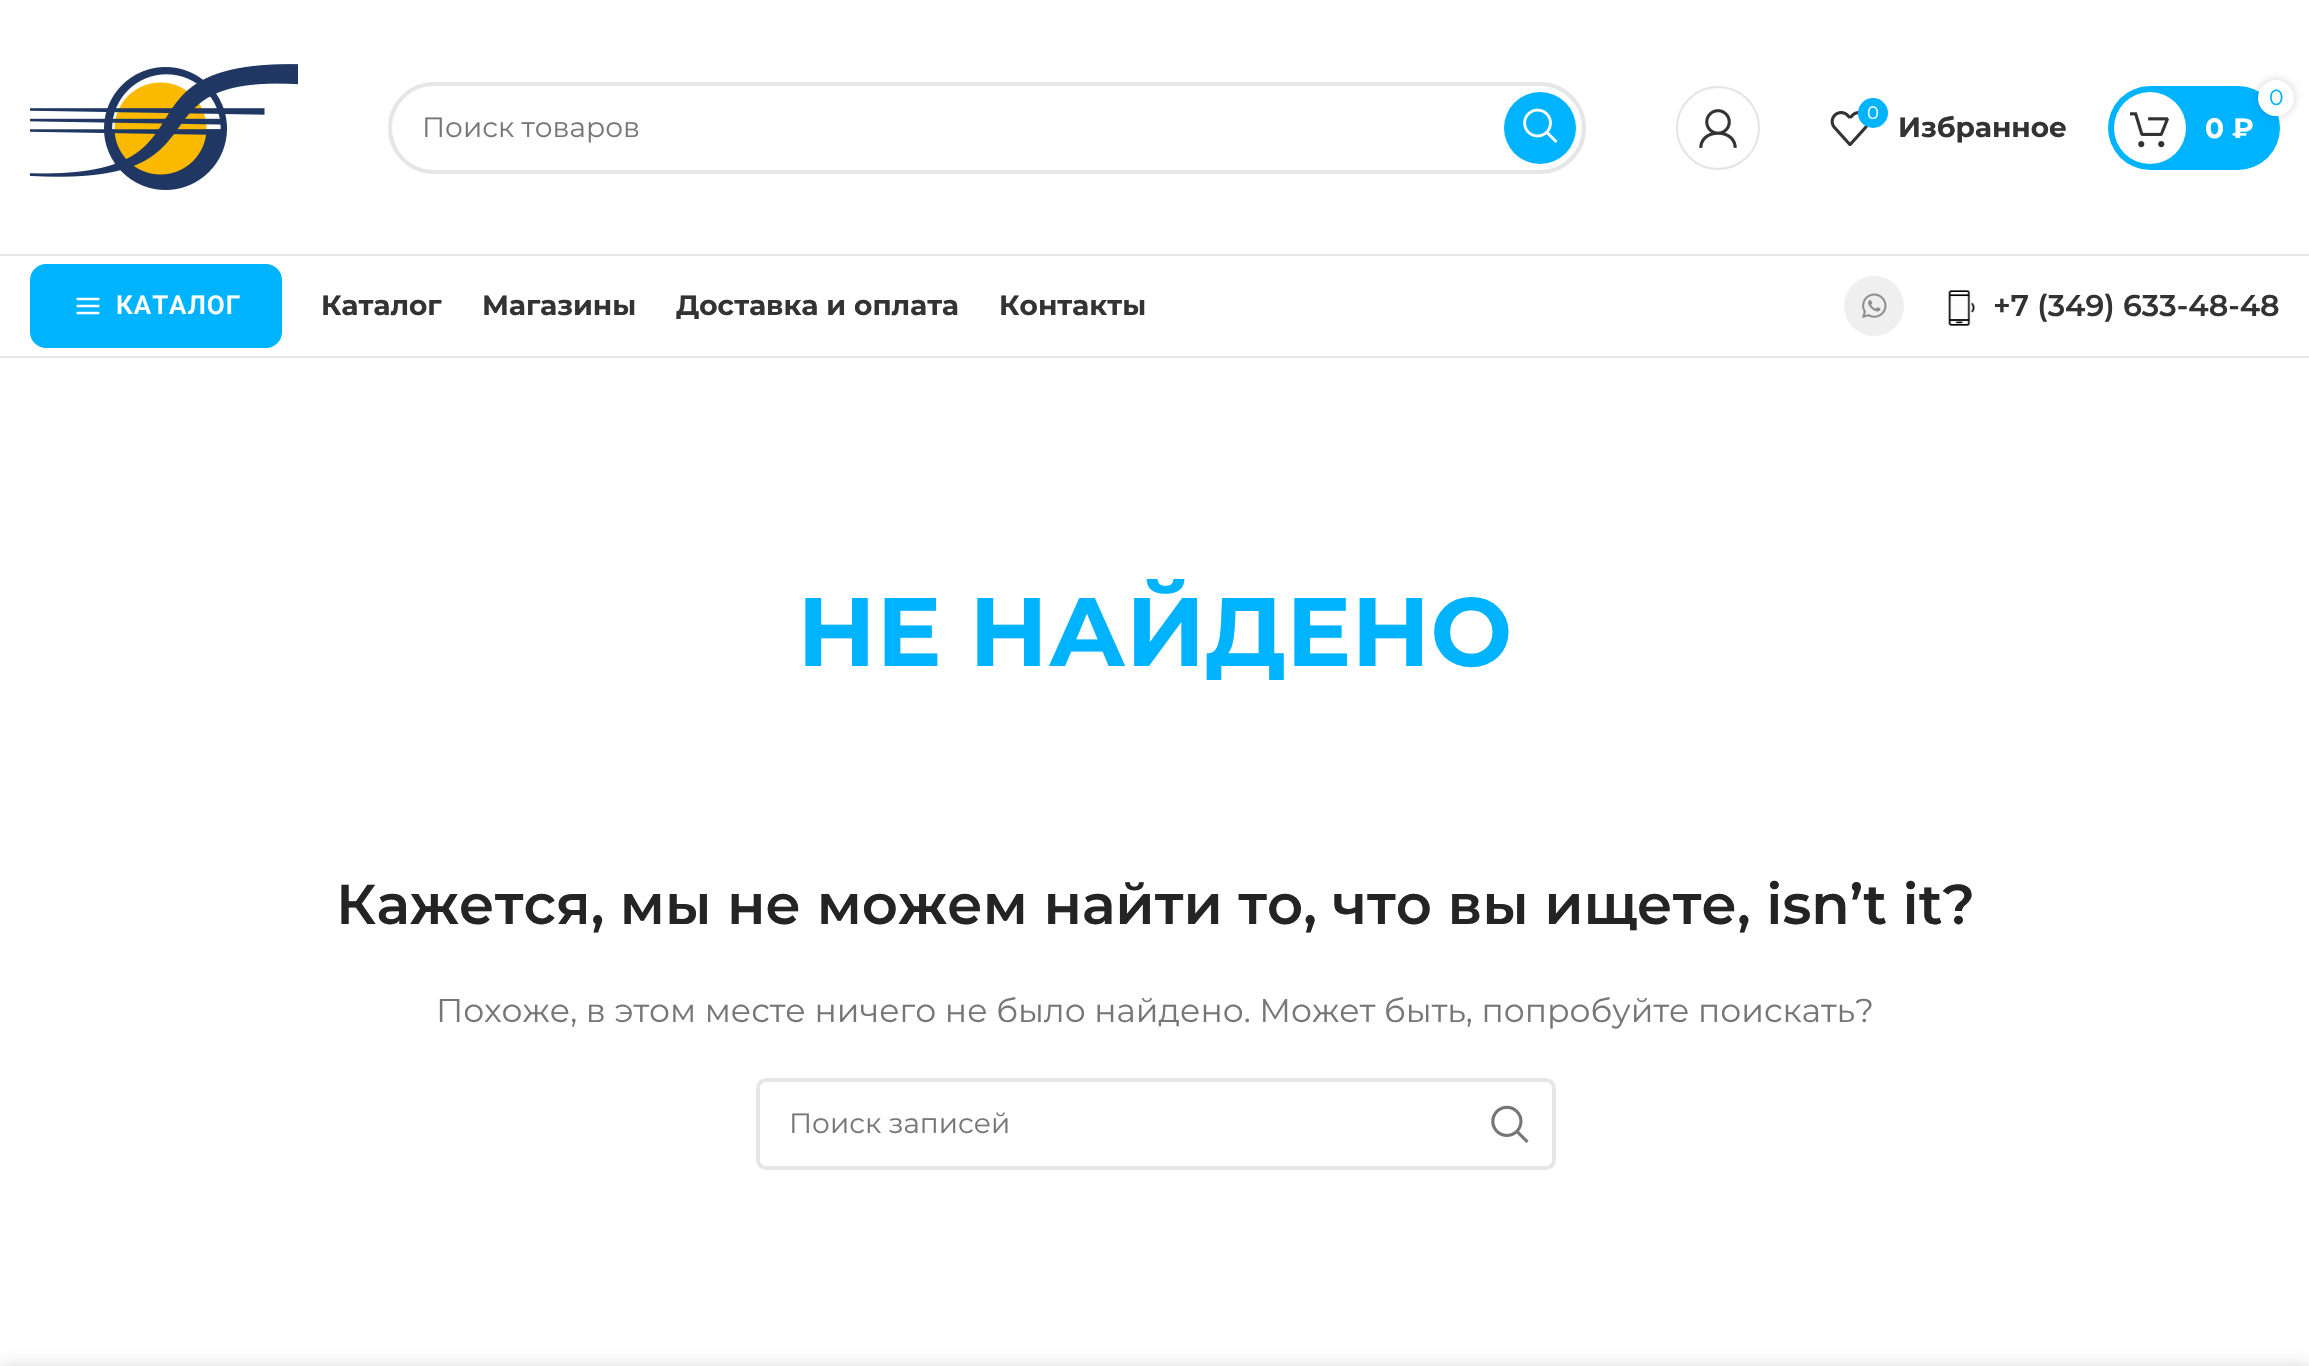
void draw(SkCanvas* canvas) {
  SkPaint paint;
  paint.setAntiAlias(true);
  auto face = [&](const char* family, int weight, float size, bool italic = false) {
    SkFontStyle style(weight, SkFontStyle::kNormal_Width,
      italic ? SkFontStyle::kItalic_Slant : SkFontStyle::kUpright_Slant);
    SkFont result(fontMgr->matchFamilyStyle(family, style), size);
    result.setSubpixel(true);
    return result;
  };
  auto writeSpaced = [&](const char* s, float x, float y, const SkFont& font, const SkPaint& ink, float letter, float word) {
    std::vector<SkGlyphID> glyphs(font.countText(s, strlen(s), SkTextEncoding::kUTF8));
    std::vector<float> xs(glyphs.size());
    font.textToGlyphs(s, strlen(s), SkTextEncoding::kUTF8, glyphs);
    font.getXPos(glyphs, xs, x);
    float extra = 0;
    for (size_t i = 0; i < glyphs.size(); i++) {
      xs[i] += extra;
      extra += letter + word * (glyphs[i] == font.unicharToGlyph(' '));
    }
    canvas->drawTextBlob(SkTextBlob::MakeFromPosHGlyphs(glyphs, xs, y, font), 0, 0, ink);
  };
  auto paste = [&](const char* path, float x, float y, float w, float h) {
    auto image = SkImages::DeferredFromEncodedData(SkData::MakeFromFileName(path));
    canvas->drawImageRect(image, SkRect::MakeXYWH(x, y, w, h), SkSamplingOptions());
  };
  auto shape = [&](const char* data, bool evenOdd = false) {
    SkPath result = *SkParsePath::FromSVGString(data);
    if (evenOdd) result.setFillType(SkPathFillType::kEvenOdd);
    return result;
  };
  canvas->clear(0xffffffff);
  paint.setColor(0xffe8e8e8);
  canvas->drawRect(SkRect::MakeXYWH(0, 254, 2309, 2), paint);
  paste("img/1.png", 30, 64, 268, 126);
  paint.setStroke(true);
  paint.setStrokeWidth(4);
  paint.setColor(0xffe6e6e6);
  canvas->drawRoundRect(SkRect::MakeXYWH(390, 84, 1194, 88), 44, 44, paint);
  paint.setStroke(false);
  paint.setColor(0xff00b3ff);
  canvas->drawCircle(1540, 128, 36, paint);
  paste("img/2.png", 1523, 108, 35, 35);
  paint.setStroke(true);
  paint.setStrokeWidth(2);
  paint.setColor(0xffe4e4e4);
  canvas->drawCircle(1718, 128, 41, paint);
  paste("img/3.png", 1699, 109, 38, 39);
  paste("img/4.png", 1830, 111, 38, 35);
  paint.setStroke(false);
  paint.setColor(0xff00b3ff);
  canvas->drawCircle(1873, 113, 15, paint);
  canvas->drawRoundRect(SkRect::MakeXYWH(2108, 86, 172, 84), 42, 42, paint);
  paint.setColor(0xffffffff);
  canvas->drawCircle(2150, 128, 36, paint);
  paint.setColor(0x2b000000);
  paint.setMaskFilter(SkMaskFilter::MakeBlur(kNormal_SkBlurStyle, 4));
  canvas->drawRoundRect(SkRect::MakeXYWH(2258, 80, 36, 36), 18, 18, paint);
  paint.setMaskFilter(nullptr);
  paint.setColor(0xffffffff);
  canvas->drawCircle(2276, 98, 18, paint);
  paste("img/5.png", 2130, 112, 39, 36);
  paint.setColor(0xffe8e8e8);
  canvas->drawRect(SkRect::MakeXYWH(0, 356, 2309, 2), paint);
  paint.setColor(0xff00b3ff);
  canvas->drawRoundRect(SkRect::MakeXYWH(30, 264, 252, 84), 16, 16, paint);
  paint.setStroke(true);
  paint.setStrokeWidth(2.3f);
  paint.setStrokeCap(SkPaint::kRound_Cap);
  paint.setStrokeJoin(SkPaint::kRound_Join);
  paint.setColor(0xffffffff);
  canvas->drawPath(shape("M77.5 306H98.5M77.5 299H98.5M77.5 313H98.5"), paint);
  paint.setStroke(false);
  paint.setColor(0xffefefef);
  canvas->drawCircle(1874, 306, 30, paint);
  paste("img/6.png", 1862, 293, 25, 25);
  paste("img/7.png", 1948, 290, 27, 36);
  paint.setStroke(true);
  paint.setStrokeWidth(4);
  paint.setStrokeCap(SkPaint::kButt_Cap);
  paint.setStrokeJoin(SkPaint::kMiter_Join);
  paint.setColor(0xffe6e6e6);
  canvas->drawRoundRect(SkRect::MakeXYWH(758, 1080, 796, 88), 8, 8, paint);
  paste("img/8.png", 1491, 1105, 38, 38);
  paint.setStroke(false);
  paint.setColor(0x24000000);
  paint.setMaskFilter(SkMaskFilter::MakeBlur(kNormal_SkBlurStyle, 9));
  canvas->drawRect(SkRect::MakeXYWH(0, 1366, 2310, 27), paint);
  paint.setMaskFilter(nullptr);
  auto f0 = face("Montserrat", 400, 28);
  paint.setColor(0xff767676);
  canvas->drawString("Поиск товаров", 422, 137, f0, paint);
  auto f1 = face("Montserrat", 400, 18);
  paint.setColor(0xffffffff);
  canvas->drawString("0", 1867, 119, f1, paint);
  auto f2 = face("Montserrat", 700, 28);
  paint.setColor(0xff333333);
  canvas->drawString("Избранное", 1898, 137, f2, paint);
  auto f3 = face("Montserrat", 400, 22);
  paint.setColor(0xff00b3ff);
  canvas->drawString("0", 2269, 105, f3, paint);
  paint.setColor(0xffffffff);
  canvas->drawString("0 ₽", 2205, 138, f2, paint);
  auto f4 = face("Roboto", 600, 26);
  writeSpaced("КАТАЛОГ", 116, 314, f4, paint, 1, 0);
  paint.setColor(0xff333333);
  {
    const struct { const char* s; float x, y; } items[] = {
      {"Каталог", 321, 315},
      {"Магазины", 482, 315},
      {"Доставка и оплата", 676, 315},
      {"Контакты", 999, 315},
    };
    for (auto [s, x, y] : items) {
      canvas->drawString(s, x, y, f2, paint);
    }
  }
  auto f5 = face("Montserrat", 600, 30);
  canvas->drawString("+7 (349) 633-48-48", 1993, 316, f5, paint);
  auto f6 = face("Montserrat", 700, 97);
  paint.setColor(0xff00b3ff);
  canvas->drawString("НЕ НАЙДЕНО", 797, 666, f6, paint);
  auto f7 = face("Montserrat", 600, 56);
  paint.setColor(0xff242424);
  canvas->drawString("Кажется, мы не можем найти то, что вы ищете, isn’t it?", 336, 924, f7, paint);
  auto f8 = face("Montserrat", 400, 33);
  paint.setColor(0xff767676);
  canvas->drawString("Похоже, в этом месте ничего не было найдено. Может быть, попробуйте поискать?", 436, 1022, f8, paint);
  canvas->drawString("Поиск записей", 789, 1133, f0, paint);
}
